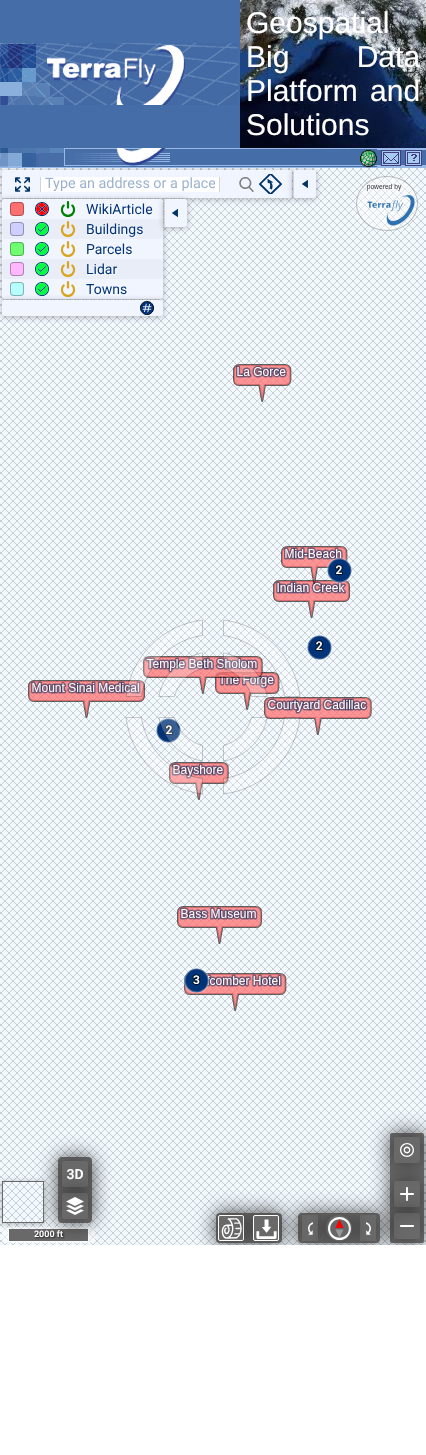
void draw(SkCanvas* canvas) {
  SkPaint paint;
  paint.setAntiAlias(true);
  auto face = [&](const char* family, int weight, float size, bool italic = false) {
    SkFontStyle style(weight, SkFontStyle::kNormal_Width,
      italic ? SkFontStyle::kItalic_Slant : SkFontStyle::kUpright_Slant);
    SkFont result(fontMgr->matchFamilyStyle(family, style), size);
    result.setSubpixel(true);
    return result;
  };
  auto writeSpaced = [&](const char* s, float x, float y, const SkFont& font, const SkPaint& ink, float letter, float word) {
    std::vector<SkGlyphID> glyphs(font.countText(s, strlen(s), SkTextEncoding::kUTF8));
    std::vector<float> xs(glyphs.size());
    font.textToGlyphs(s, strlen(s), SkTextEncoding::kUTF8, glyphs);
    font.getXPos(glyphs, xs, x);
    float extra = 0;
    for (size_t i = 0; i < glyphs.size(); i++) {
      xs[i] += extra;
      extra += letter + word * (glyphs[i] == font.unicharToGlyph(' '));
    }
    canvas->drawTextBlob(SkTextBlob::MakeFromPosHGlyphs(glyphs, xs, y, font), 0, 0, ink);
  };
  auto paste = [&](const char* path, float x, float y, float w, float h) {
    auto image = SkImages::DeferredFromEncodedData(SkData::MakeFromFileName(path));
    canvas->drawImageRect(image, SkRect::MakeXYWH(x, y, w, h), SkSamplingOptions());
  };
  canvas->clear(0xffffffff);
  paint.setColor(0xff456da7);
  canvas->drawRect(SkRect::MakeXYWH(0, 0, 240, 148), paint);
  paste("img/1.png", 0, 43, 46, 62);
  paste("img/2.png", 46, 43, 143, 62);
  paste("img/3.png", 189, 43, 49, 62);
  paste("img/4.png", 240, 0, 186, 148);
  paste("img/5.png", 0, 148, 360, 20);
  paste("img/6.png", 0, 148, 170, 19);
  paste("img/7.png", 360, 148, 66, 20);
  paste("img/8.png", 360, 149, 17, 19);
  paste("img/9.png", 377, 149, 49, 18);
  paste("img/10.png", 0, 168, 426, 1077);
  auto f0 = face("Liberation Sans", 400, 30);
  paint.setColor(0xffffffff);
  canvas->drawString("Geospatial", 246, 33, f0, paint);
  writeSpaced("Big Data", 246, 67, f0, paint, 0, 59);
  writeSpaced("Platform and", 246, 101, f0, paint, 0, 4);
  canvas->drawString("Solutions", 246, 135, f0, paint);
}
